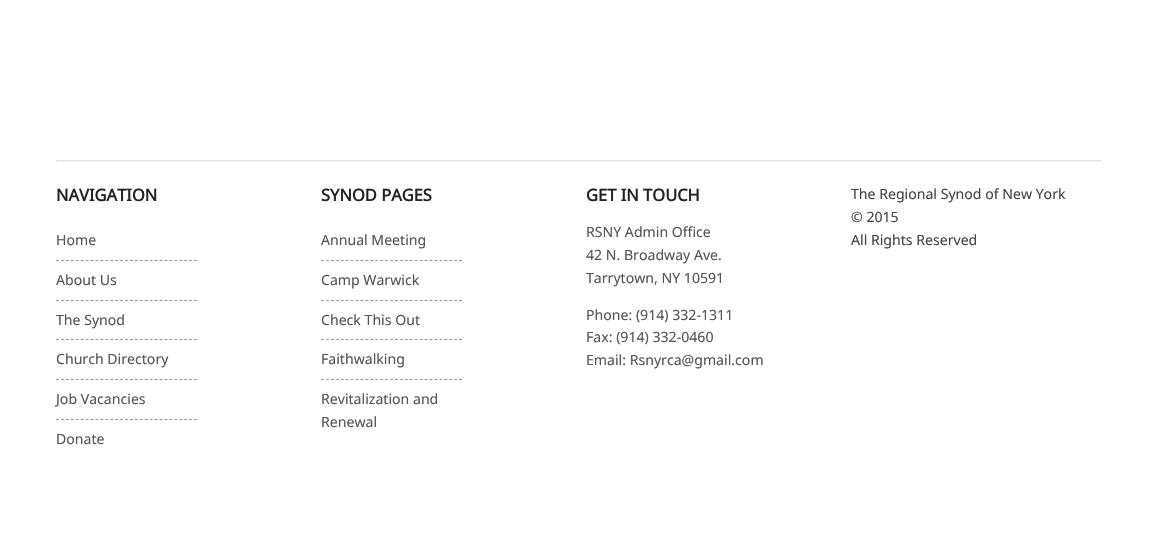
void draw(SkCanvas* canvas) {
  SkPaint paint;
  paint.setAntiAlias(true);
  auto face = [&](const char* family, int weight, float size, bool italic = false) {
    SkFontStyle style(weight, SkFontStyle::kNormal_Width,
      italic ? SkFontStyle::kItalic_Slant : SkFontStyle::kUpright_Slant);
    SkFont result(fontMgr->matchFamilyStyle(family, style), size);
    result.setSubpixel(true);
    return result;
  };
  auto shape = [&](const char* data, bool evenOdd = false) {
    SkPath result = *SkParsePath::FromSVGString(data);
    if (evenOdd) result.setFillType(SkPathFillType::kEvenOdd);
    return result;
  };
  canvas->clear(0xffffffff);
  {
    const struct { float x, y, w, h; SkColor color; } items[] = {
      {56, 160, 1046, 1, 0xffe0e0e0},
      {1101, 160, 1, 2, 0xfffafafa},
      {56, 161, 1046, 1, 0xfffafafa},
      {56, 160, 1, 2, 0xffe0e0e0},
    };
    for (auto [x, y, w, h, color] : items) {
      paint.setColor(color);
      canvas->drawRect(SkRect::MakeXYWH(x, y, w, h), paint);
    }
  }
  paint.setStroke(true);
  paint.setStrokeWidth(1);
  paint.setColor(0xff9a9a9a);
  paint.setPathEffect(SkDashPathEffect::Make({{3, 1.93f}}, 0));
  canvas->drawPath(shape("M56 260.5H197"), paint);
  paint.setPathEffect(nullptr);
  paint.setPathEffect(SkDashPathEffect::Make({{3, 1.93f}}, 0));
  canvas->drawPath(shape("M56 300.5H197"), paint);
  paint.setPathEffect(nullptr);
  paint.setPathEffect(SkDashPathEffect::Make({{3, 1.93f}}, 0));
  canvas->drawPath(shape("M56 339.5H197"), paint);
  paint.setPathEffect(nullptr);
  paint.setPathEffect(SkDashPathEffect::Make({{3, 1.93f}}, 0));
  canvas->drawPath(shape("M56 379.5H197"), paint);
  paint.setPathEffect(nullptr);
  paint.setPathEffect(SkDashPathEffect::Make({{3, 1.93f}}, 0));
  canvas->drawPath(shape("M56 419.5H197"), paint);
  paint.setPathEffect(nullptr);
  paint.setPathEffect(SkDashPathEffect::Make({{3, 1.93f}}, 0));
  canvas->drawPath(shape("M321 260.5H462"), paint);
  paint.setPathEffect(nullptr);
  paint.setPathEffect(SkDashPathEffect::Make({{3, 1.93f}}, 0));
  canvas->drawPath(shape("M321 300.5H462"), paint);
  paint.setPathEffect(nullptr);
  paint.setPathEffect(SkDashPathEffect::Make({{3, 1.93f}}, 0));
  canvas->drawPath(shape("M321 339.5H462"), paint);
  paint.setPathEffect(nullptr);
  paint.setPathEffect(SkDashPathEffect::Make({{3, 1.93f}}, 0));
  canvas->drawPath(shape("M321 379.5H462"), paint);
  paint.setPathEffect(nullptr);
  auto f0 = face("Noto Sans", 700, 16.5f);
  paint.setStroke(false);
  paint.setColor(0xff222222);
  canvas->drawString("NAVIGATION", 56, 201, f0, paint);
  auto f1 = face("Noto Sans", 400, 14.1f);
  paint.setColor(0xff555555);
  {
    const struct { const char* s; float x, y; } items[] = {
      {"Home", 56, 245},
      {"About Us", 56, 285},
      {"The Synod", 56, 325},
      {"Church Directory", 56, 364},
      {"Job Vacancies", 56, 404},
      {"Donate", 56, 444},
    };
    for (auto [s, x, y] : items) {
      canvas->drawString(s, x, y, f1, paint);
    }
  }
  paint.setColor(0xff222222);
  canvas->drawString("SYNOD PAGES", 321, 201, f0, paint);
  paint.setColor(0xff555555);
  {
    const struct { const char* s; float x, y; } items[] = {
      {"Annual Meeting", 321, 245},
      {"Camp Warwick", 321, 285},
      {"Check This Out", 321, 325},
      {"Faithwalking", 321, 364},
      {"Revitalization and", 321, 404},
      {"Renewal", 321, 427},
    };
    for (auto [s, x, y] : items) {
      canvas->drawString(s, x, y, f1, paint);
    }
  }
  paint.setColor(0xff222222);
  canvas->drawString("GET IN TOUCH", 586, 201, f0, paint);
  paint.setColor(0xff555555);
  {
    const struct { const char* s; float x, y; } items[] = {
      {"RSNY Admin Office", 586, 237},
      {"42 N. Broadway Ave.", 586, 260},
      {"Tarrytown, NY 10591", 586, 283},
      {"Phone: (914) 332-1311", 586, 320},
      {"Fax: (914) 332-0460", 586, 342},
      {"Email: Rsnyrca@gmail.com", 586, 365},
    };
    for (auto [s, x, y] : items) {
      canvas->drawString(s, x, y, f1, paint);
    }
  }
  paint.setColor(0xff444444);
  {
    const struct { const char* s; float x, y; } items[] = {
      {"The Regional Synod of New York", 851, 199},
      {"© 2015", 851, 222},
      {"All Rights Reserved", 851, 245},
    };
    for (auto [s, x, y] : items) {
      canvas->drawString(s, x, y, f1, paint);
    }
  }
}
